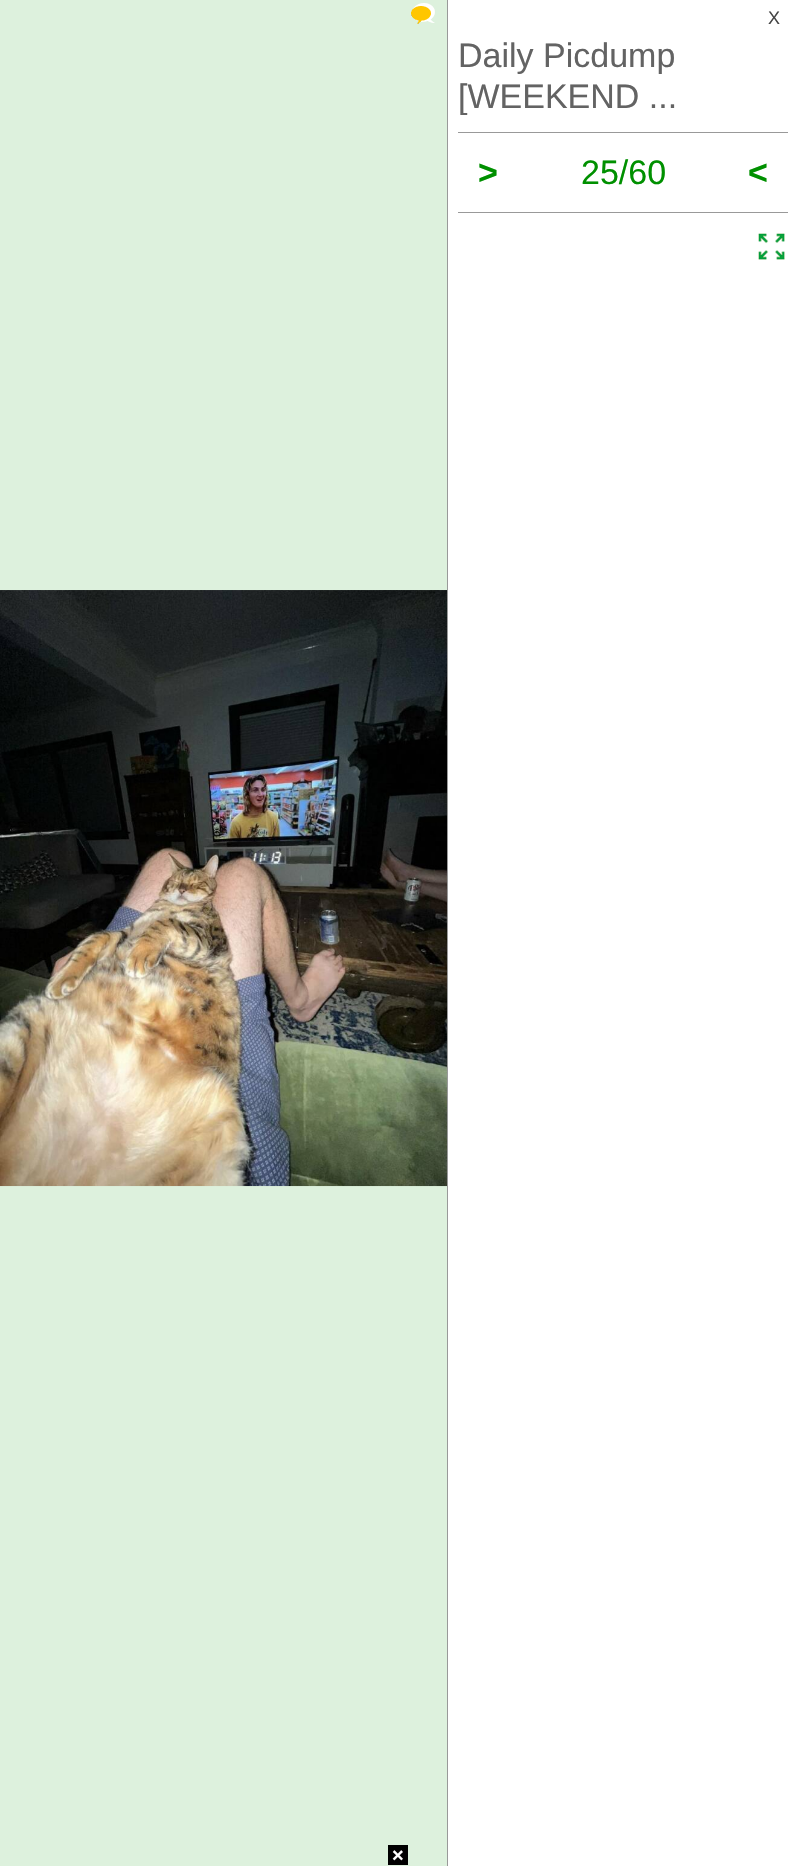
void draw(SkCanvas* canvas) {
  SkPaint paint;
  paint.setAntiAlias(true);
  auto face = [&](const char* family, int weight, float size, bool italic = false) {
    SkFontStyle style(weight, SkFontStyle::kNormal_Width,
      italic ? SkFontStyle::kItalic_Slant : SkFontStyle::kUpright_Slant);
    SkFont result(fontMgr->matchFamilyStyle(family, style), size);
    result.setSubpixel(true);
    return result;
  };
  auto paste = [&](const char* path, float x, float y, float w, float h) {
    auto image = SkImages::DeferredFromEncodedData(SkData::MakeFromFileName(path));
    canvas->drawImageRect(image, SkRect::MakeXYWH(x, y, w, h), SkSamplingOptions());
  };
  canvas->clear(0xffddf1dd);
  paste("img/1.png", 411, 3, 24, 21);
  paste("img/2.png", 0, 590, 447, 597);
  {
    const struct { float x, y, w, h; SkColor color; } items[] = {
      {448, 0, 350, 1866, 0xffffffff},
      {447, 0, 1, 1866, 0xff999999},
      {458, 132, 330, 1, 0xff999999},
      {458, 212, 330, 1, 0xff999999},
    };
    for (auto [x, y, w, h, color] : items) {
      paint.setColor(color);
      canvas->drawRect(SkRect::MakeXYWH(x, y, w, h), paint);
    }
  }
  paste("img/3.png", 758, 233, 27, 27);
  paint.setColor(0xff000000);
  canvas->drawRect(SkRect::MakeXYWH(388, 1845, 20, 20), paint);
  auto f0 = face("Liberation Sans", 400, 18);
  paint.setColor(0xff444444);
  canvas->drawString("X", 768, 24, f0, paint);
  auto f1 = face("Liberation Sans", 400, 34);
  paint.setColor(0xff636363);
  canvas->drawString("Daily Picdump", 458, 67, f1, paint);
  canvas->drawString("[WEEKEND ...", 458, 108, f1, paint);
  auto f2 = face("Liberation Sans", 700, 34);
  paint.setColor(0xff009000);
  canvas->drawString(">", 478, 184, f2, paint);
  canvas->drawString("25/60", 581, 184, f1, paint);
  canvas->drawString("<", 748, 184, f2, paint);
  auto f3 = face("Liberation Sans", 700, 20);
  paint.setColor(0xffffffff);
  canvas->drawString("×", 392, 1862, f3, paint);
}
